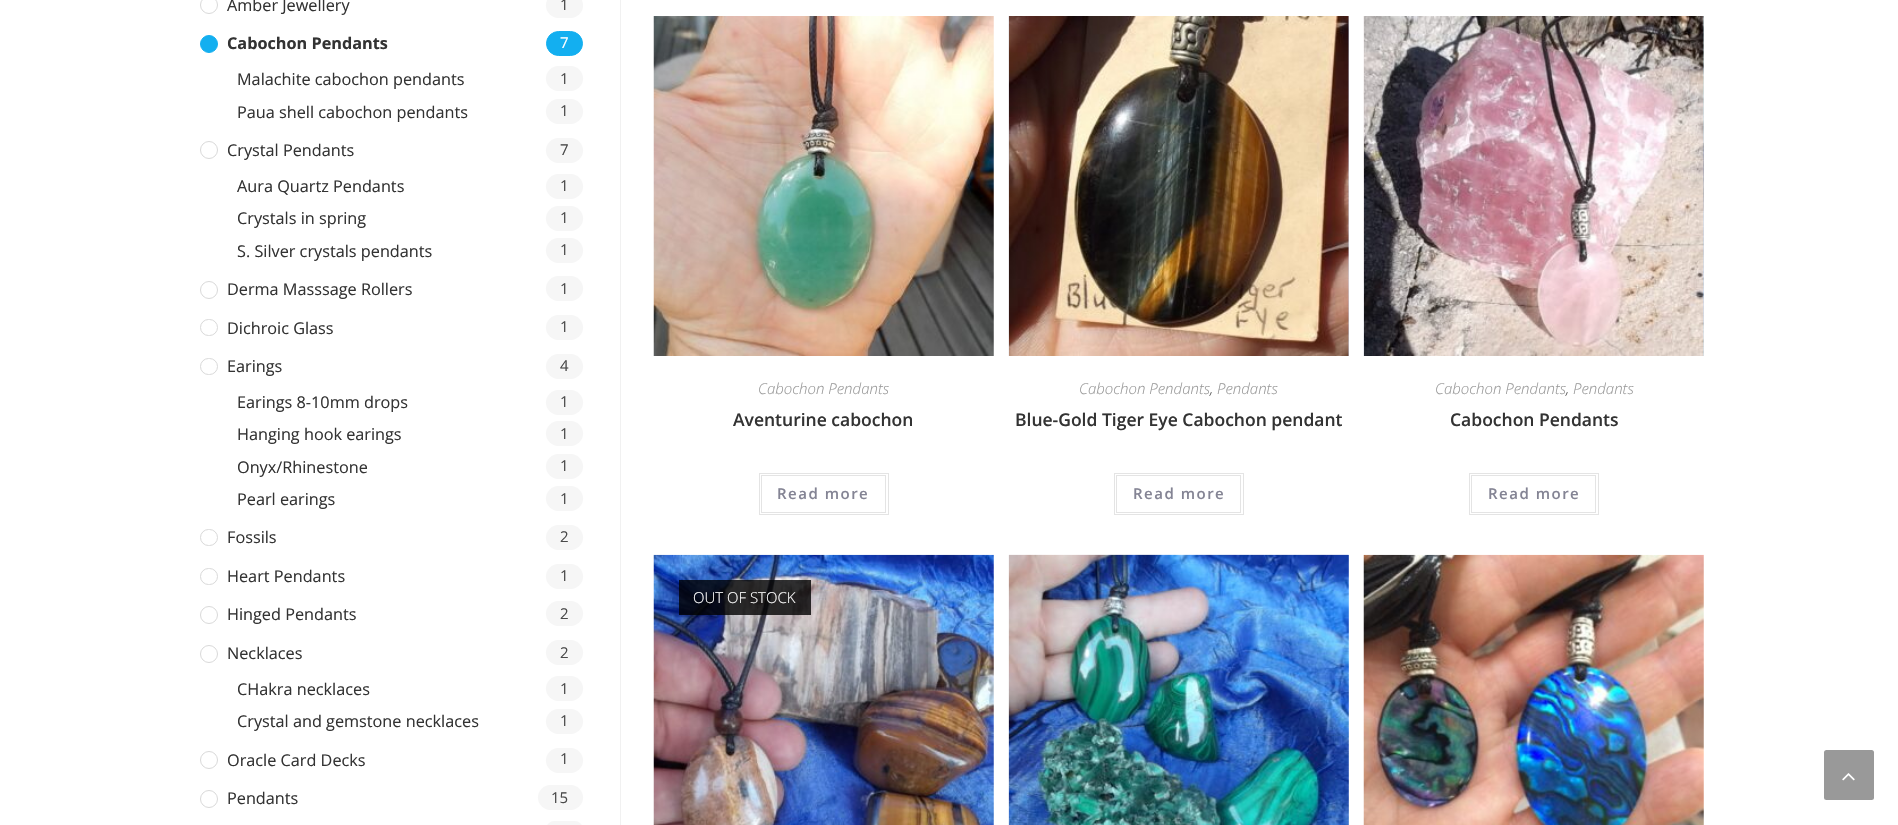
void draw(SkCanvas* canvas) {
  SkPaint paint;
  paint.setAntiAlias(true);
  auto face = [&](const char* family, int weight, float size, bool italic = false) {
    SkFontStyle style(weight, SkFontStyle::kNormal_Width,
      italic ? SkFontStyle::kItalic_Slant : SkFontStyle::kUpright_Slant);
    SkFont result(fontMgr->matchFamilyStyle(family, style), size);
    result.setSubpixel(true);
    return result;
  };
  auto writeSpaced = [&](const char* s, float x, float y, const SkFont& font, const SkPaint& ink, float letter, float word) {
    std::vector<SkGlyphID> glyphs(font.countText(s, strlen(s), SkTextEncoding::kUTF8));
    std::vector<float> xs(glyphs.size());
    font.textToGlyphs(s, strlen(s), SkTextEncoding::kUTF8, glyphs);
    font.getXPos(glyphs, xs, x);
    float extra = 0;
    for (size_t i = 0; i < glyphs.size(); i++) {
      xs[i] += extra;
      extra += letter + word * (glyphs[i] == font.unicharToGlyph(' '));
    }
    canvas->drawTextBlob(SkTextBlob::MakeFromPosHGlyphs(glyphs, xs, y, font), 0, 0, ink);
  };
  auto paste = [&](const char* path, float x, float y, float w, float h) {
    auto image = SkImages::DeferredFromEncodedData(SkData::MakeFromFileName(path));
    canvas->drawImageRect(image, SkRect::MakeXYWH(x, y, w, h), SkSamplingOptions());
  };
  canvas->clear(0xffffffff);
  paint.setStroke(true);
  paint.setStrokeWidth(1);
  paint.setColor(0xffd9d9d9);
  canvas->drawCircle(209, 5, 8.5f, paint);
  paint.setStroke(false);
  paint.setColor(0xfff6f6f6);
  canvas->drawRoundRect(SkRect::MakeXYWH(546, -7, 37, 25), 12.5f, 12.5f, paint);
  paint.setColor(0xff13aff0);
  canvas->drawCircle(209, 44, 8.5f, paint);
  paint.setStroke(true);
  canvas->drawCircle(209, 44, 8.5f, paint);
  paint.setStroke(false);
  canvas->drawRoundRect(SkRect::MakeXYWH(546.5f, 31.5f, 36, 24), 12, 12, paint);
  paint.setStroke(true);
  canvas->drawRoundRect(SkRect::MakeXYWH(546.5f, 31.5f, 36, 24), 12, 12, paint);
  paint.setStroke(false);
  paint.setColor(0xfff6f6f6);
  canvas->drawRoundRect(SkRect::MakeXYWH(546, 66, 37, 25), 12.5f, 12.5f, paint);
  canvas->drawRoundRect(SkRect::MakeXYWH(546, 99, 37, 25), 12.5f, 12.5f, paint);
  paint.setStroke(true);
  paint.setColor(0xffd9d9d9);
  canvas->drawCircle(209, 150, 8.5f, paint);
  paint.setStroke(false);
  paint.setColor(0xfff6f6f6);
  canvas->drawRoundRect(SkRect::MakeXYWH(546, 138, 37, 25), 12.5f, 12.5f, paint);
  canvas->drawRoundRect(SkRect::MakeXYWH(546, 174, 37, 25), 12.5f, 12.5f, paint);
  canvas->drawRoundRect(SkRect::MakeXYWH(546, 206, 37, 25), 12.5f, 12.5f, paint);
  canvas->drawRoundRect(SkRect::MakeXYWH(546, 238, 37, 25), 12.5f, 12.5f, paint);
  paint.setStroke(true);
  paint.setColor(0xffd9d9d9);
  canvas->drawCircle(209, 290, 8.5f, paint);
  paint.setStroke(false);
  paint.setColor(0xfff6f6f6);
  canvas->drawRoundRect(SkRect::MakeXYWH(546, 276, 37, 25), 12.5f, 12.5f, paint);
  paint.setStroke(true);
  paint.setColor(0xffd9d9d9);
  canvas->drawRoundRect(SkRect::MakeXYWH(200.5f, 319.5f, 17, 16), 8, 8, paint);
  paint.setStroke(false);
  paint.setColor(0xfff6f6f6);
  canvas->drawRoundRect(SkRect::MakeXYWH(546, 315, 37, 25), 12.5f, 12.5f, paint);
  paint.setStroke(true);
  paint.setColor(0xffd9d9d9);
  canvas->drawRoundRect(SkRect::MakeXYWH(200.5f, 358.5f, 17, 16), 8, 8, paint);
  paint.setStroke(false);
  paint.setColor(0xfff6f6f6);
  canvas->drawRoundRect(SkRect::MakeXYWH(546, 354, 37, 25), 12.5f, 12.5f, paint);
  canvas->drawRoundRect(SkRect::MakeXYWH(546, 390, 37, 25), 12.5f, 12.5f, paint);
  canvas->drawRoundRect(SkRect::MakeXYWH(546, 421, 37, 25), 12.5f, 12.5f, paint);
  canvas->drawRoundRect(SkRect::MakeXYWH(546, 454, 37, 25), 12.5f, 12.5f, paint);
  canvas->drawRoundRect(SkRect::MakeXYWH(546, 486, 37, 25), 12.5f, 12.5f, paint);
  paint.setStroke(true);
  paint.setColor(0xffd9d9d9);
  canvas->drawRoundRect(SkRect::MakeXYWH(200.5f, 529.5f, 17, 16), 8, 8, paint);
  paint.setStroke(false);
  paint.setColor(0xfff6f6f6);
  canvas->drawRoundRect(SkRect::MakeXYWH(546, 525, 37, 25), 12.5f, 12.5f, paint);
  paint.setStroke(true);
  paint.setColor(0xffd9d9d9);
  canvas->drawRoundRect(SkRect::MakeXYWH(200.5f, 568.5f, 17, 16), 8, 8, paint);
  paint.setStroke(false);
  paint.setColor(0xfff6f6f6);
  canvas->drawRoundRect(SkRect::MakeXYWH(546, 564, 37, 25), 12.5f, 12.5f, paint);
  paint.setStroke(true);
  paint.setColor(0xffd9d9d9);
  canvas->drawCircle(209, 615, 8.5f, paint);
  paint.setStroke(false);
  paint.setColor(0xfff6f6f6);
  canvas->drawRoundRect(SkRect::MakeXYWH(546, 601, 37, 25), 12.5f, 12.5f, paint);
  paint.setStroke(true);
  paint.setColor(0xffd9d9d9);
  canvas->drawCircle(209, 654, 8.5f, paint);
  paint.setStroke(false);
  paint.setColor(0xfff6f6f6);
  canvas->drawRoundRect(SkRect::MakeXYWH(546, 640, 37, 25), 12.5f, 12.5f, paint);
  canvas->drawRoundRect(SkRect::MakeXYWH(546, 676, 37, 25), 12.5f, 12.5f, paint);
  canvas->drawRoundRect(SkRect::MakeXYWH(546, 709, 37, 25), 12.5f, 12.5f, paint);
  paint.setStroke(true);
  paint.setColor(0xffd9d9d9);
  canvas->drawCircle(209, 760, 8.5f, paint);
  paint.setStroke(false);
  paint.setColor(0xfff6f6f6);
  canvas->drawRoundRect(SkRect::MakeXYWH(546, 748, 37, 25), 12.5f, 12.5f, paint);
  paint.setStroke(true);
  paint.setColor(0xffd9d9d9);
  canvas->drawCircle(209, 799, 8.5f, paint);
  paint.setStroke(false);
  paint.setColor(0xfff6f6f6);
  canvas->drawRoundRect(SkRect::MakeXYWH(538, 785, 45, 25), 12.5f, 12.5f, paint);
  canvas->drawRoundRect(SkRect::MakeXYWH(546, 821, 37, 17), 12.5f, 12.5f, paint);
  paint.setColor(0xfff1f1f1);
  canvas->drawRect(SkRect::MakeXYWH(620, 0, 1, 825), paint);
  paste("img/1.png", 653, 16, 341, 340);
  paint.setStroke(true);
  paint.setColor(0xffe4e4e4);
  canvas->drawRect(SkRect::MakeXYWH(759.5f, 473.5f, 129, 41), paint);
  canvas->drawRect(SkRect::MakeXYWH(761.5f, 475.5f, 124, 37), paint);
  paste("img/2.png", 1008, 16, 341, 340);
  paste("img/3.png", 1008, 16, 341, 340);
  canvas->drawRect(SkRect::MakeXYWH(1114.5f, 473.5f, 129, 41), paint);
  canvas->drawRect(SkRect::MakeXYWH(1116.5f, 475.5f, 124, 37), paint);
  paste("img/4.png", 1363, 16, 341, 340);
  paste("img/5.png", 1363, 16, 341, 340);
  canvas->drawRect(SkRect::MakeXYWH(1469.5f, 473.5f, 129, 41), paint);
  canvas->drawRect(SkRect::MakeXYWH(1471.5f, 475.5f, 124, 37), paint);
  paste("img/6.png", 653, 554, 341, 271);
  paint.setStroke(false);
  paint.setColor(0xcc000000);
  canvas->drawRect(SkRect::MakeXYWH(679, 580, 132, 35), paint);
  paste("img/7.png", 1008, 554, 341, 271);
  paste("img/8.png", 1008, 554, 341, 271);
  paste("img/9.png", 1363, 554, 341, 271);
  paint.setColor(0xff999999);
  canvas->drawRoundRect(SkRect::MakeXYWH(1824, 750, 50, 50), 2.5f, 2.5f, paint);
  paste("img/10.png", 1842, 773, 13, 8);
  auto f0 = face("Open Sans", 400, 16.25f);
  paint.setColor(0xff333333);
  canvas->drawString("Amber Jewellery", 227, 11, f0, paint);
  auto f1 = face("Open Sans", 400, 15);
  paint.setColor(0xff4a4a4a);
  canvas->drawString("1", 560, 10, f1, paint);
  auto f2 = face("Open Sans", 700, 16.25f);
  paint.setColor(0xff333333);
  canvas->drawString("Cabochon Pendants", 227, 49, f2, paint);
  paint.setColor(0xffffffff);
  canvas->drawString("7", 560, 48, f1, paint);
  paint.setColor(0xff333333);
  canvas->drawString("Malachite cabochon pendants", 237, 85, f0, paint);
  paint.setColor(0xff4a4a4a);
  canvas->drawString("1", 560, 84, f1, paint);
  paint.setColor(0xff333333);
  canvas->drawString("Paua shell cabochon pendants", 237, 118, f0, paint);
  paint.setColor(0xff4a4a4a);
  canvas->drawString("1", 560, 116, f1, paint);
  paint.setColor(0xff333333);
  canvas->drawString("Crystal Pendants", 227, 156, f0, paint);
  paint.setColor(0xff4a4a4a);
  canvas->drawString("7", 560, 155, f1, paint);
  paint.setColor(0xff333333);
  canvas->drawString("Aura Quartz Pendants", 237, 192, f0, paint);
  paint.setColor(0xff4a4a4a);
  canvas->drawString("1", 560, 191, f1, paint);
  paint.setColor(0xff333333);
  canvas->drawString("Crystals in spring", 237, 224, f0, paint);
  paint.setColor(0xff4a4a4a);
  canvas->drawString("1", 560, 223, f1, paint);
  paint.setColor(0xff333333);
  canvas->drawString("S. Silver crystals pendants", 237, 257, f0, paint);
  paint.setColor(0xff4a4a4a);
  canvas->drawString("1", 560, 255, f1, paint);
  paint.setColor(0xff333333);
  canvas->drawString("Derma Masssage Rollers", 227, 295, f0, paint);
  paint.setColor(0xff4a4a4a);
  canvas->drawString("1", 560, 294, f1, paint);
  paint.setColor(0xff333333);
  canvas->drawString("Dichroic Glass", 227, 334, f0, paint);
  paint.setColor(0xff4a4a4a);
  canvas->drawString("1", 560, 332, f1, paint);
  paint.setColor(0xff333333);
  canvas->drawString("Earings", 227, 372, f0, paint);
  paint.setColor(0xff4a4a4a);
  canvas->drawString("4", 560, 371, f1, paint);
  paint.setColor(0xff333333);
  canvas->drawString("Earings 8-10mm drops", 237, 408, f0, paint);
  paint.setColor(0xff4a4a4a);
  canvas->drawString("1", 560, 407, f1, paint);
  paint.setColor(0xff333333);
  canvas->drawString("Hanging hook earings", 237, 440, f0, paint);
  paint.setColor(0xff4a4a4a);
  canvas->drawString("1", 560, 439, f1, paint);
  paint.setColor(0xff333333);
  canvas->drawString("Onyx/Rhinestone", 237, 473, f0, paint);
  paint.setColor(0xff4a4a4a);
  canvas->drawString("1", 560, 471, f1, paint);
  paint.setColor(0xff333333);
  canvas->drawString("Pearl earings", 237, 505, f0, paint);
  paint.setColor(0xff4a4a4a);
  canvas->drawString("1", 560, 504, f1, paint);
  paint.setColor(0xff333333);
  canvas->drawString("Fossils", 227, 543, f0, paint);
  paint.setColor(0xff4a4a4a);
  canvas->drawString("2", 560, 542, f1, paint);
  paint.setColor(0xff333333);
  canvas->drawString("Heart Pendants", 227, 582, f0, paint);
  paint.setColor(0xff4a4a4a);
  canvas->drawString("1", 560, 581, f1, paint);
  paint.setColor(0xff333333);
  canvas->drawString("Hinged Pendants", 227, 620, f0, paint);
  paint.setColor(0xff4a4a4a);
  canvas->drawString("2", 560, 619, f1, paint);
  paint.setColor(0xff333333);
  canvas->drawString("Necklaces", 227, 659, f0, paint);
  paint.setColor(0xff4a4a4a);
  canvas->drawString("2", 560, 658, f1, paint);
  paint.setColor(0xff333333);
  canvas->drawString("CHakra necklaces", 237, 695, f0, paint);
  paint.setColor(0xff4a4a4a);
  canvas->drawString("1", 560, 694, f1, paint);
  paint.setColor(0xff333333);
  canvas->drawString("Crystal and gemstone necklaces", 237, 727, f0, paint);
  paint.setColor(0xff4a4a4a);
  canvas->drawString("1", 560, 726, f1, paint);
  paint.setColor(0xff333333);
  canvas->drawString("Oracle Card Decks", 227, 766, f0, paint);
  paint.setColor(0xff4a4a4a);
  canvas->drawString("1", 560, 764, f1, paint);
  paint.setColor(0xff333333);
  canvas->drawString("Pendants", 227, 804, f0, paint);
  paint.setColor(0xff4a4a4a);
  canvas->drawString("15", 551, 803, f1, paint);
  auto f3 = face("Open Sans", 300, 15, true);
  paint.setColor(0xff999999);
  canvas->drawString("Cabochon Pendants", 758, 394, f3, paint);
  auto f4 = face("Open Sans", 600, 17.5f);
  paint.setColor(0xff333333);
  canvas->drawString("Aventurine cabochon", 733, 426, f4, paint);
  auto f5 = face("Open Sans", 600, 15);
  paint.setColor(0xff848494);
  writeSpaced("Read more", 777, 499, f5, paint, 1.5f, 0);
  paint.setColor(0xff999999);
  canvas->drawString("Cabochon Pendants", 1079, 394, f3, paint);
  paint.setColor(0xff4a4a4a);
  canvas->drawString(",", 1210, 394, f3, paint);
  paint.setColor(0xff999999);
  canvas->drawString("Pendants", 1217, 394, f3, paint);
  paint.setColor(0xff333333);
  canvas->drawString("Blue-Gold Tiger Eye Cabochon pendant", 1015, 426, f4, paint);
  paint.setColor(0xff848494);
  writeSpaced("Read more", 1133, 499, f5, paint, 1.5f, 0);
  paint.setColor(0xff999999);
  canvas->drawString("Cabochon Pendants", 1435, 394, f3, paint);
  paint.setColor(0xff4a4a4a);
  canvas->drawString(",", 1566, 394, f3, paint);
  paint.setColor(0xff999999);
  canvas->drawString("Pendants", 1573, 394, f3, paint);
  paint.setColor(0xff333333);
  canvas->drawString("Cabochon Pendants", 1450, 426, f4, paint);
  paint.setColor(0xff848494);
  writeSpaced("Read more", 1488, 499, f5, paint, 1.5f, 0);
  auto f6 = face("Open Sans", 300, 15);
  paint.setColor(0xffffffff);
  canvas->drawString("OUT OF STOCK", 693, 603, f6, paint);
}
